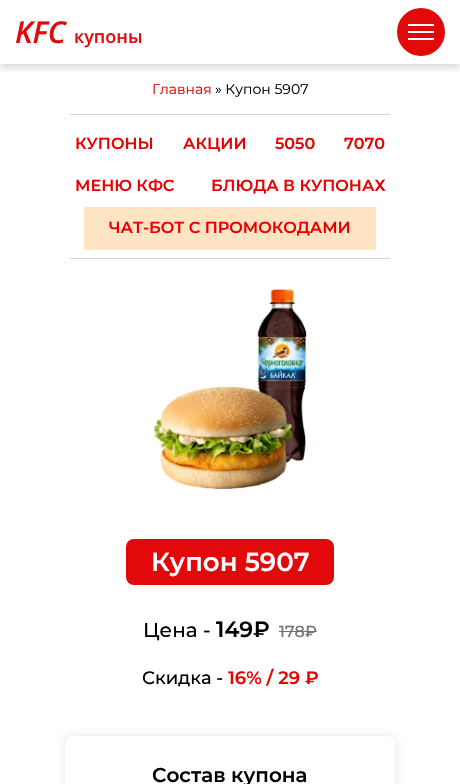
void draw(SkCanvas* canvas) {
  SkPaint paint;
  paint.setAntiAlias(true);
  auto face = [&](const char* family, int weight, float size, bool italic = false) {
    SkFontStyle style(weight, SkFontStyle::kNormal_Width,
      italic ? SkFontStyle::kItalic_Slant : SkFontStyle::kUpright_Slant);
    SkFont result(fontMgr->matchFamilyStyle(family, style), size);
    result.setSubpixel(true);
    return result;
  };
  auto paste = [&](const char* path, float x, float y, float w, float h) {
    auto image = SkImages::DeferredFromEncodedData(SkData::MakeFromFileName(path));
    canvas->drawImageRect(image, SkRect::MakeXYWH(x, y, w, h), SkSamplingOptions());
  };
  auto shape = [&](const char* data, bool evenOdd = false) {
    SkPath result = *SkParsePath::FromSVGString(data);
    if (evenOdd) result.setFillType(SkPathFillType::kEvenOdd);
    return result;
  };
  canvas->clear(0xffffffff);
  canvas->save();
  canvas->clipRect(SkRect::MakeXYWH(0, 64, 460, 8));
  paint.setColor(0x26000000);
  paint.setMaskFilter(SkMaskFilter::MakeBlur(kNormal_SkBlurStyle, 4));
  canvas->drawRect(SkRect::MakeXYWH(0, 4, 460, 64), paint);
  paint.setMaskFilter(nullptr);
  canvas->restore();
  paint.setColor(0xffe10909);
  canvas->drawCircle(421, 32, 24, paint);
  {
    const struct { float x, y, w, h; SkColor color; } items[] = {
      {408, 38, 26, 2, 0xffffffff},
      {408, 24, 26, 2, 0xffffffff},
      {408, 31, 26, 2, 0xffffffff},
      {70, 114, 320, 1, 0xffd1d1d1},
      {84, 207, 292, 43, 0xffffe4c4},
      {70, 258, 320, 1, 0xffd1d1d1},
    };
    for (auto [x, y, w, h, color] : items) {
      paint.setColor(color);
      canvas->drawRect(SkRect::MakeXYWH(x, y, w, h), paint);
    }
  }
  paste("img/1.png", 153, 289, 154, 200);
  paint.setColor(0xffe10909);
  canvas->drawRoundRect(SkRect::MakeXYWH(126, 539, 208, 46), 8, 8, paint);
  paint.setColor(0xff717171);
  canvas->drawRect(SkRect::MakeXYWH(279, 631, 38, 1), paint);
  canvas->save();
  canvas->clipPath(shape("M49 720H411V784H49ZM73 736H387C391.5 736 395 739.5 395 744V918C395 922.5 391.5 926 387 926H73C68.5 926 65 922.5 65 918V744C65 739.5 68.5 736 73 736Z", true), true);
  paint.setColor(0x1a000000);
  paint.setMaskFilter(SkMaskFilter::MakeBlur(kNormal_SkBlurStyle, 5));
  canvas->drawRoundRect(SkRect::MakeXYWH(65, 736, 330, 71), 8, 8, paint);
  paint.setMaskFilter(nullptr);
  canvas->restore();
  auto f0 = face("Open Sans", 600, 30, true);
  paint.setColor(0xffe10909);
  canvas->drawString("KFC", 15, 43, f0, paint);
  auto f1 = face("Open Sans", 600, 18);
  canvas->drawString("купоны", 74, 43, f1, paint);
  auto f2 = face("Montserrat", 400, 14);
  paint.setColor(0xffea0000);
  canvas->drawString("Главная", 152, 94, f2, paint);
  paint.setColor(0xff000000);
  canvas->drawString("» Купон 5907", 215, 94, f2, paint);
  auto f3 = face("Montserrat", 600, 16);
  paint.setColor(0xffea0000);
  {
    const struct { const char* s; float x, y; } items[] = {
      {"КУПОНЫ", 75, 149},
      {"АКЦИИ", 183, 149},
      {"5050", 275, 149},
      {"7070", 344, 149},
      {"МЕНЮ КФС", 75, 191},
      {"БЛЮДА В КУПОНАХ", 211, 191},
      {"ЧАТ-БОТ С ПРОМОКОДАМИ", 109, 233},
    };
    for (auto [s, x, y] : items) {
      canvas->drawString(s, x, y, f3, paint);
    }
  }
  auto f4 = face("Montserrat", 600, 26);
  paint.setColor(0xffffffff);
  canvas->drawString("Купон 5907", 151, 571, f4, paint);
  auto f5 = face("Montserrat", 500, 20);
  paint.setColor(0xff000000);
  canvas->drawString("Цена -", 143, 637, f5, paint);
  auto f6 = face("Montserrat", 600, 22);
  canvas->drawString("149₽", 216, 637, f6, paint);
  auto f7 = face("Montserrat", 500, 16);
  paint.setColor(0xff717171);
  canvas->drawString("178₽", 279, 637, f7, paint);
  auto f8 = face("Montserrat", 500, 18);
  paint.setColor(0xff000000);
  canvas->drawString("Скидка -", 142, 684, f8, paint);
  auto f9 = face("Montserrat", 600, 18);
  paint.setColor(0xffea0000);
  canvas->drawString("16% / 29 ₽", 228, 684, f9, paint);
  auto f10 = face("Montserrat", 600, 20);
  paint.setColor(0xff000000);
  canvas->drawString("Состав купона", 152, 782, f10, paint);
}
